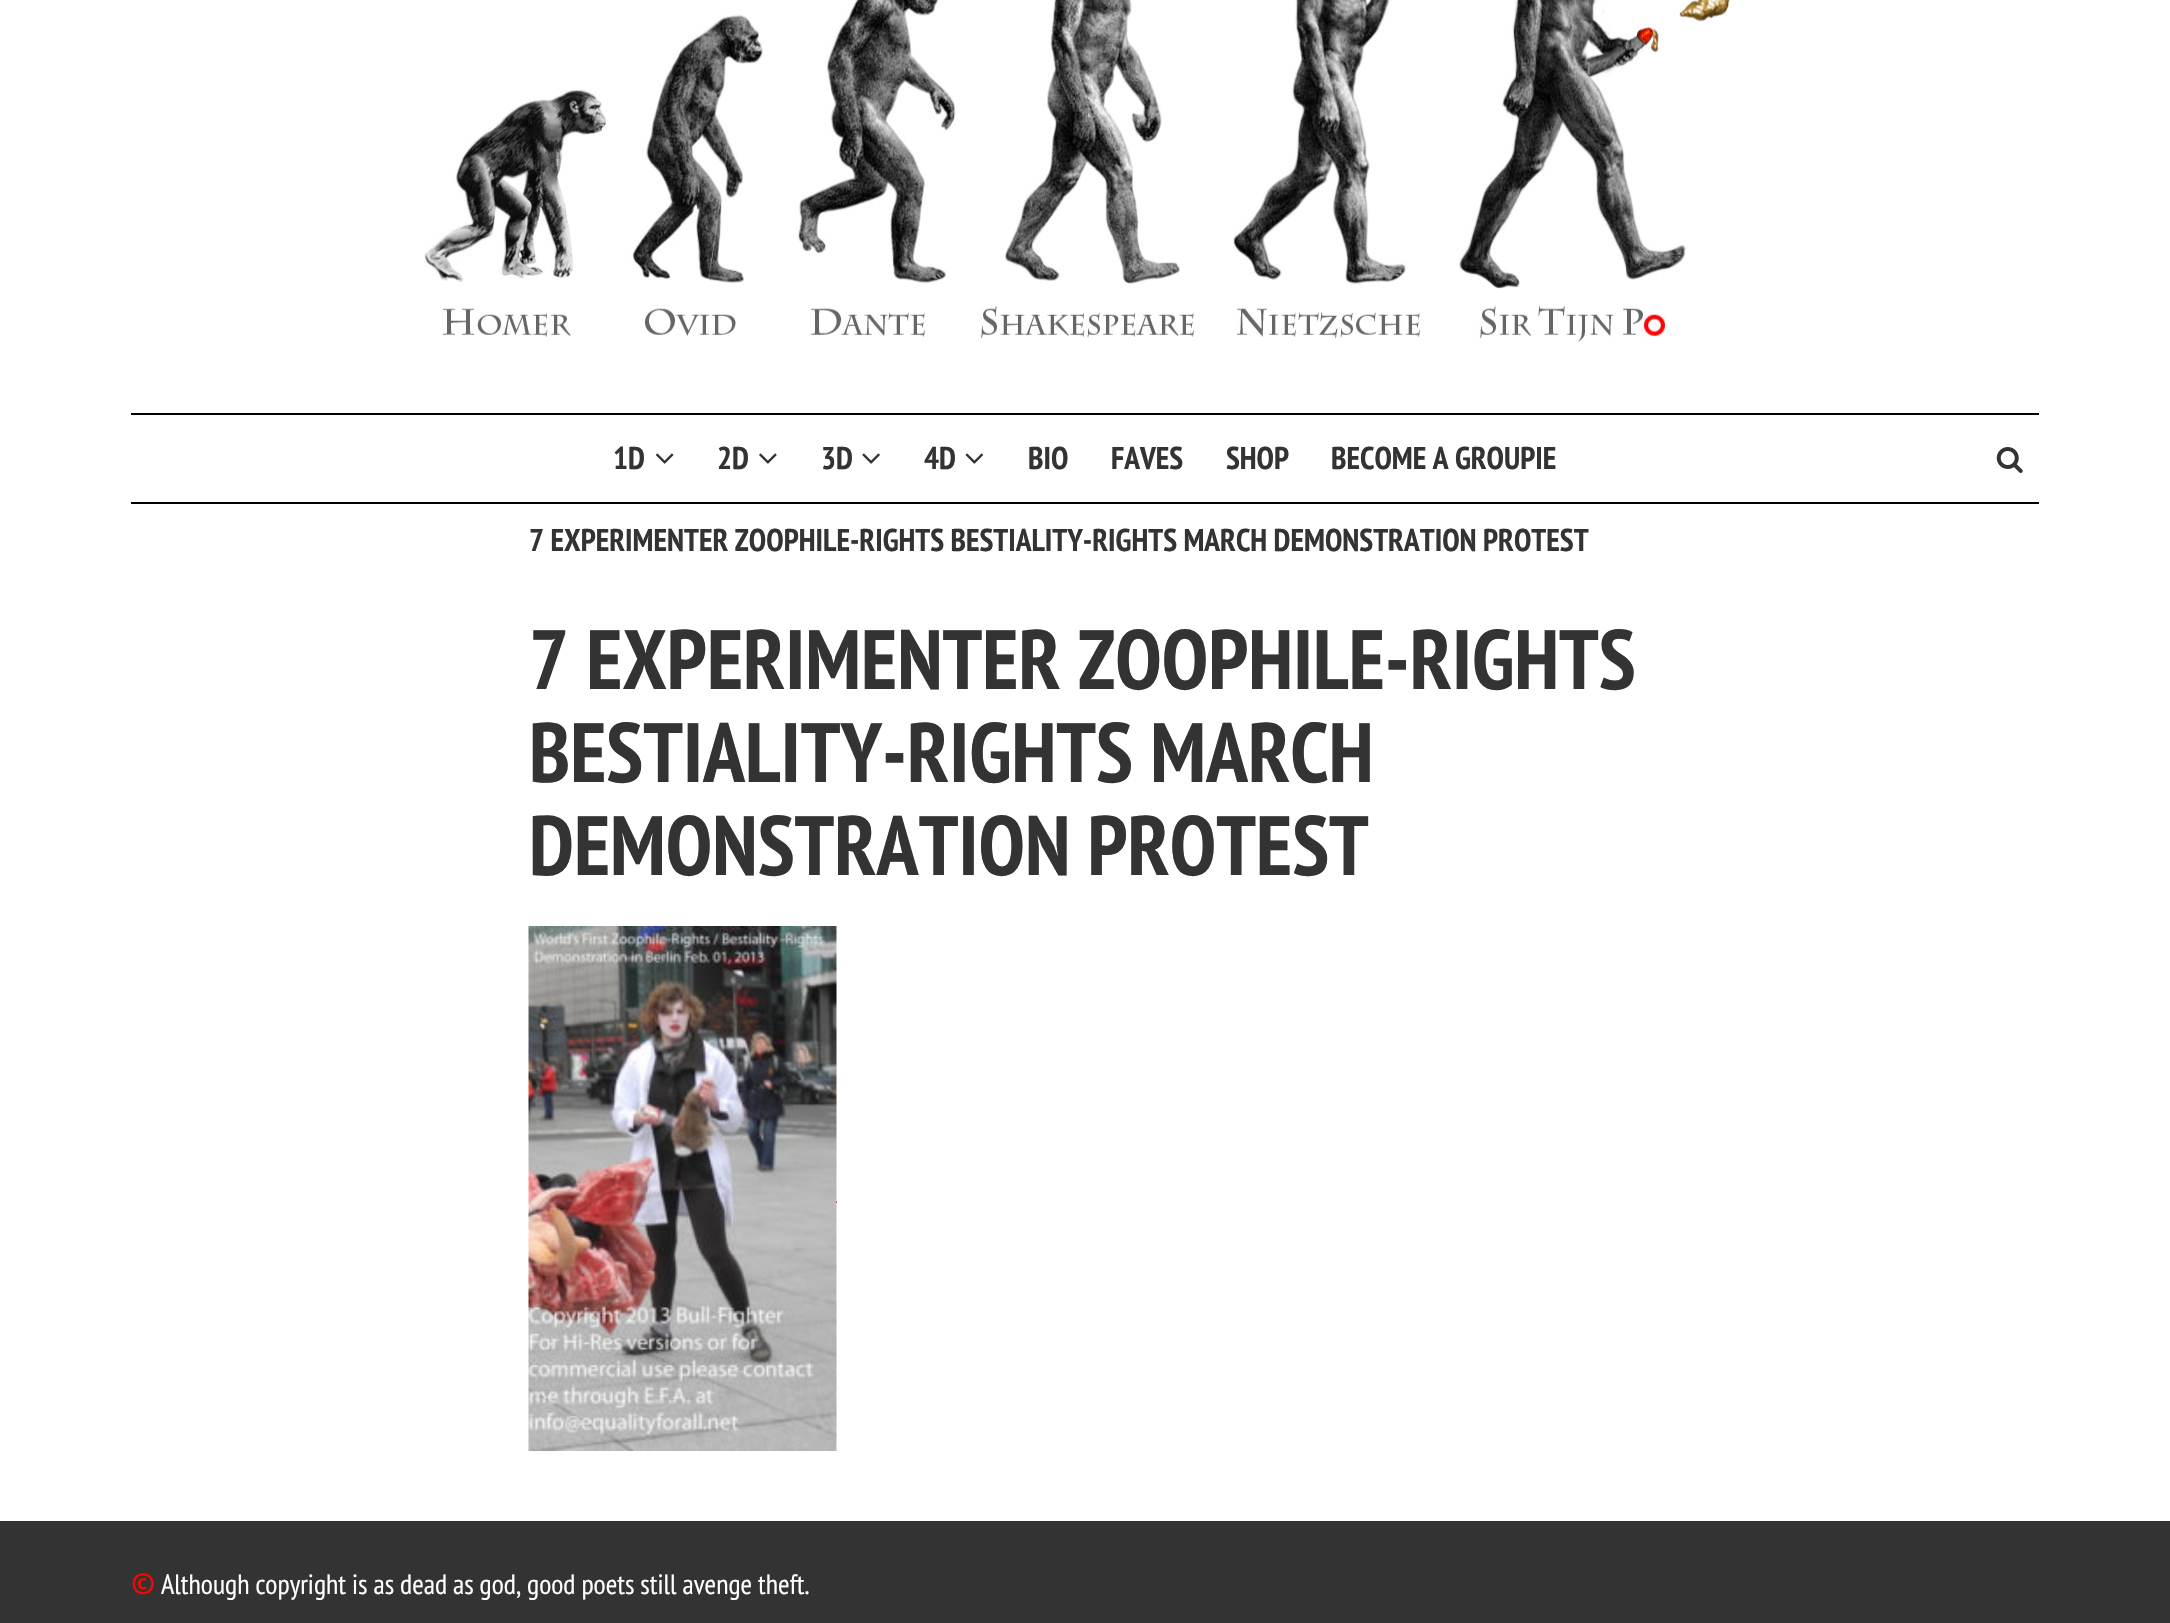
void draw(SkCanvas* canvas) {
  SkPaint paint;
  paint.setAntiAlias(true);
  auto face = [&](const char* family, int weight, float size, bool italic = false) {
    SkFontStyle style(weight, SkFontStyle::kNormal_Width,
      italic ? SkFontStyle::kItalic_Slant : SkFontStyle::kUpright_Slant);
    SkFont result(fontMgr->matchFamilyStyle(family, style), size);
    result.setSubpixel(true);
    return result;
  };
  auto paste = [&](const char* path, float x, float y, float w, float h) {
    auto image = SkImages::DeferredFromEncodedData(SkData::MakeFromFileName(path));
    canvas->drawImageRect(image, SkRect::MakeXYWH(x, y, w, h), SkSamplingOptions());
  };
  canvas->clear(0xffffffff);
  paste("img/1.png", 424, 0, 1307, 343);
  paint.setColor(0xff000000);
  canvas->drawRect(SkRect::MakeXYWH(131, 413, 1908, 2), paint);
  canvas->drawRect(SkRect::MakeXYWH(131, 502, 1908, 2), paint);
  paste("img/2.png", 655, 453, 19, 11);
  paste("img/3.png", 759, 453, 18, 11);
  paste("img/4.png", 862, 453, 18, 11);
  paste("img/5.png", 965, 453, 19, 11);
  paste("img/6.png", 1996, 447, 27, 26);
  paint.setColor(0xffff0303);
  canvas->drawRect(SkRect::MakeXYWH(836, 1201, 1, 2), paint);
  paste("img/7.png", 528, 926, 309, 525);
  paint.setColor(0xff333333);
  canvas->drawRect(SkRect::MakeXYWH(0, 1521, 2170, 102), paint);
  auto f0 = face("PT Sans Narrow", 700, 31.5f);
  {
    const struct { const char* s; float x, y; } items[] = {
      {"1D", 613, 469},
      {"2D", 717, 469},
      {"3D", 821, 469},
      {"4D", 924, 469},
      {"BIO", 1028, 469},
      {"FAVES", 1111, 469},
      {"SHOP", 1226, 469},
      {"BECOME A GROUPIE", 1331, 469},
      {"7 EXPERIMENTER ZOOPHILE-RIGHTS BESTIALITY-RIGHTS MARCH DEMONSTRATION PROTEST", 529, 551},
    };
    for (auto [s, x, y] : items) {
      canvas->drawString(s, x, y, f0, paint);
    }
  }
  auto f1 = face("PT Sans Narrow", 700, 84);
  {
    const struct { const char* s; float x, y; } items[] = {
      {"7 EXPERIMENTER ZOOPHILE-RIGHTS", 529, 689},
      {"BESTIALITY-RIGHTS MARCH", 529, 782},
      {"DEMONSTRATION PROTEST", 529, 875},
    };
    for (auto [s, x, y] : items) {
      canvas->drawString(s, x, y, f1, paint);
    }
  }
  auto f2 = face("PT Sans Narrow", 400, 35);
  paint.setColor(0xffff0303);
  canvas->drawString("©", 131, 1594, f2, paint);
  auto f3 = face("PT Sans Narrow", 400, 28);
  paint.setColor(0xffffffff);
  canvas->drawString("Although copyright is as dead as god, good poets still avenge theft.", 161, 1594, f3, paint);
}
